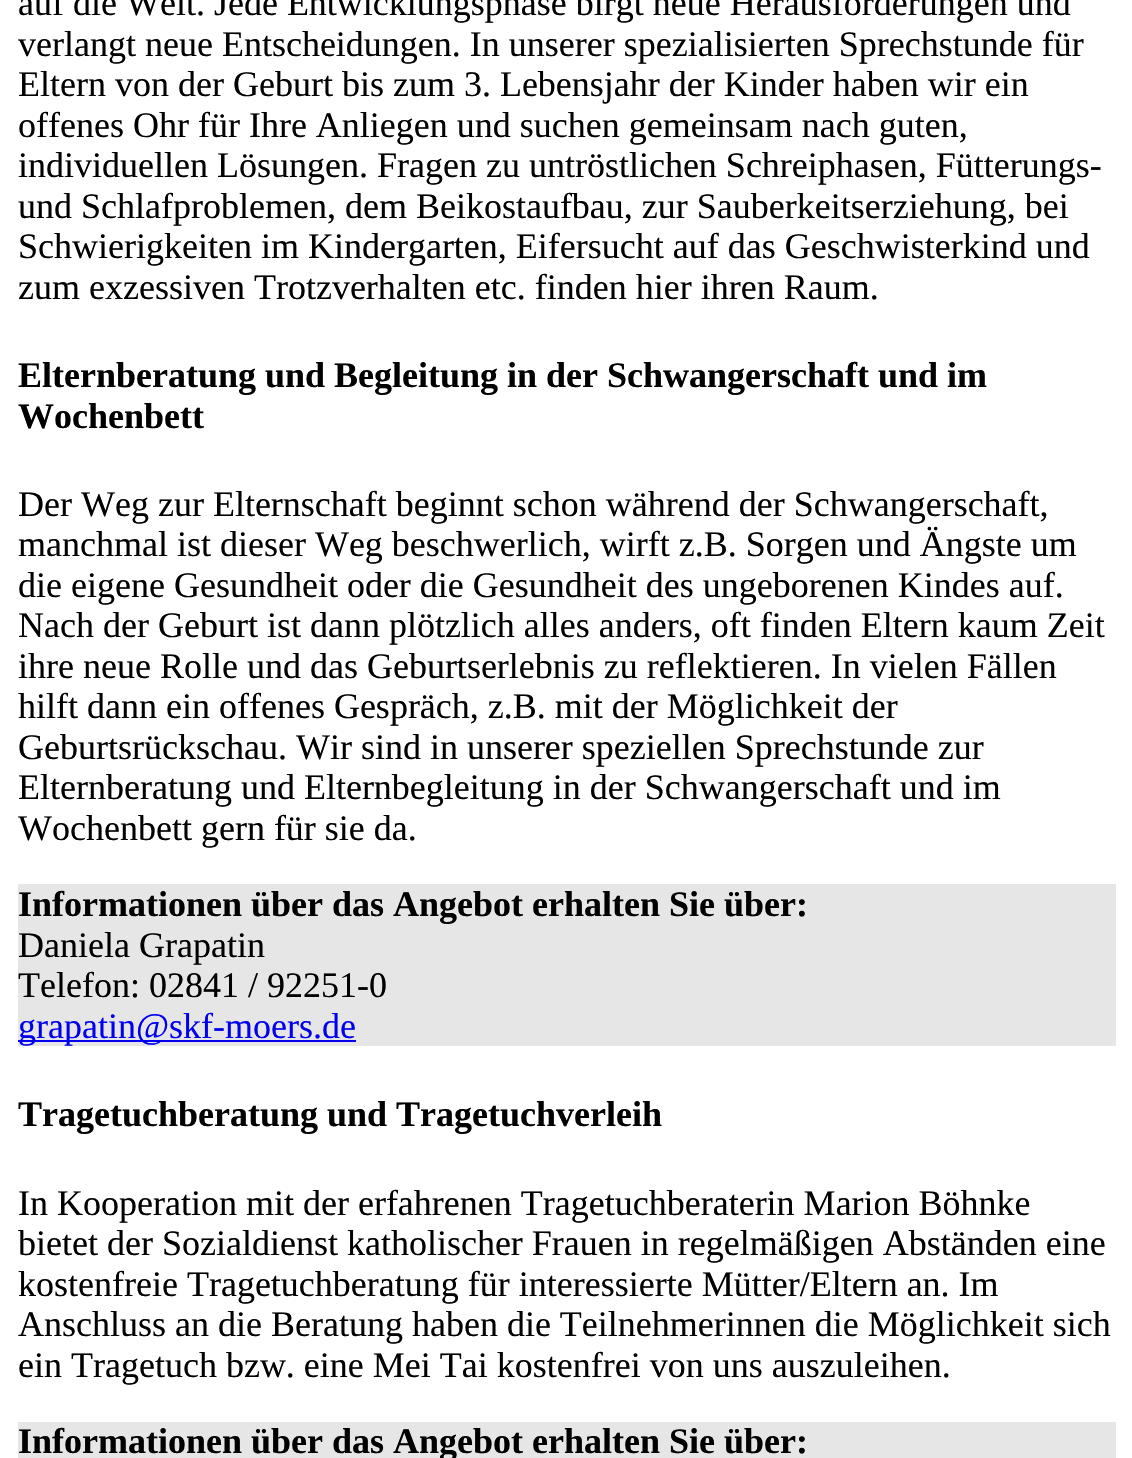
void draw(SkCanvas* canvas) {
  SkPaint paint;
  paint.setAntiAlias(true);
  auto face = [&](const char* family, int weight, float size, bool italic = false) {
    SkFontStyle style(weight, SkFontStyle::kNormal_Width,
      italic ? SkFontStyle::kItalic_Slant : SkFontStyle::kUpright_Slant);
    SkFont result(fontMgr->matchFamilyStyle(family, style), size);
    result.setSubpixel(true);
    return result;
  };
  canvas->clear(0xffffffff);
  {
    const struct { float x, y, w, h; SkColor color; } items[] = {
      {18, 884, 1098, 162, 0xffe6e6e6},
      {18, 1040, 338, 2, 0xff0000ee},
      {18, 1422, 1098, 36, 0xffe6e6e6},
    };
    for (auto [x, y, w, h, color] : items) {
      paint.setColor(color);
      canvas->drawRect(SkRect::MakeXYWH(x, y, w, h), paint);
    }
  }
  auto f0 = face("Liberation Serif", 400, 36);
  paint.setColor(0xff000000);
  {
    const struct { const char* s; float x, y; } items[] = {
      {"auf die Welt. Jede Entwicklungsphase birgt neue Herausforderungen und", 18, 15},
      {"verlangt neue Entscheidungen. In unserer spezialisierten Sprechstunde für", 18, 56},
      {"Eltern von der Geburt bis zum 3. Lebensjahr der Kinder haben wir ein", 18, 96},
      {"offenes Ohr für Ihre Anliegen und suchen gemeinsam nach guten,", 18, 137},
      {"individuellen Lösungen. Fragen zu untröstlichen Schreiphasen, Fütterungs-", 18, 177},
      {"und Schlafproblemen, dem Beikostaufbau, zur Sauberkeitserziehung, bei", 18, 218},
      {"Schwierigkeiten im Kindergarten, Eifersucht auf das Geschwisterkind und", 18, 258},
      {"zum exzessiven Trotzverhalten etc. finden hier ihren Raum.", 18, 299},
    };
    for (auto [s, x, y] : items) {
      canvas->drawString(s, x, y, f0, paint);
    }
  }
  auto f1 = face("Liberation Serif", 700, 36);
  canvas->drawString("Elternberatung und Begleitung in der Schwangerschaft und im", 18, 387, f1, paint);
  canvas->drawString("Wochenbett", 18, 428, f1, paint);
  {
    const struct { const char* s; float x, y; } items[] = {
      {"Der Weg zur Elternschaft beginnt schon während der Schwangerschaft,", 18, 516},
      {"manchmal ist dieser Weg beschwerlich, wirft z.B. Sorgen und Ängste um", 18, 556},
      {"die eigene Gesundheit oder die Gesundheit des ungeborenen Kindes auf.", 18, 597},
      {"Nach der Geburt ist dann plötzlich alles anders, oft finden Eltern kaum Zeit", 18, 637},
      {"ihre neue Rolle und das Geburtserlebnis zu reflektieren. In vielen Fällen", 18, 678},
      {"hilft dann ein offenes Gespräch, z.B. mit der Möglichkeit der", 18, 718},
      {"Geburtsrückschau. Wir sind in unserer speziellen Sprechstunde zur", 18, 759},
      {"Elternberatung und Elternbegleitung in der Schwangerschaft und im", 18, 799},
      {"Wochenbett gern für sie da.", 18, 840},
    };
    for (auto [s, x, y] : items) {
      canvas->drawString(s, x, y, f0, paint);
    }
  }
  canvas->drawString("Informationen über das Angebot erhalten Sie über:", 18, 916, f1, paint);
  canvas->drawString("Daniela Grapatin", 18, 957, f0, paint);
  canvas->drawString("Telefon: 02841 / 92251-0", 18, 997, f0, paint);
  paint.setColor(0xff0000ee);
  canvas->drawString("grapatin@skf-moers.de", 18, 1038, f0, paint);
  paint.setColor(0xff000000);
  canvas->drawString("Tragetuchberatung und Tragetuchverleih", 18, 1126, f1, paint);
  {
    const struct { const char* s; float x, y; } items[] = {
      {"In Kooperation mit der erfahrenen Tragetuchberaterin Marion Böhnke", 18, 1215},
      {"bietet der Sozialdienst katholischer Frauen in regelmäßigen Abständen eine", 18, 1255},
      {"kostenfreie Tragetuchberatung für interessierte Mütter/Eltern an. Im", 18, 1296},
      {"Anschluss an die Beratung haben die Teilnehmerinnen die Möglichkeit sich", 18, 1336},
      {"ein Tragetuch bzw. eine Mei Tai kostenfrei von uns auszuleihen.", 18, 1377},
    };
    for (auto [s, x, y] : items) {
      canvas->drawString(s, x, y, f0, paint);
    }
  }
  canvas->drawString("Informationen über das Angebot erhalten Sie über:", 18, 1453, f1, paint);
}
